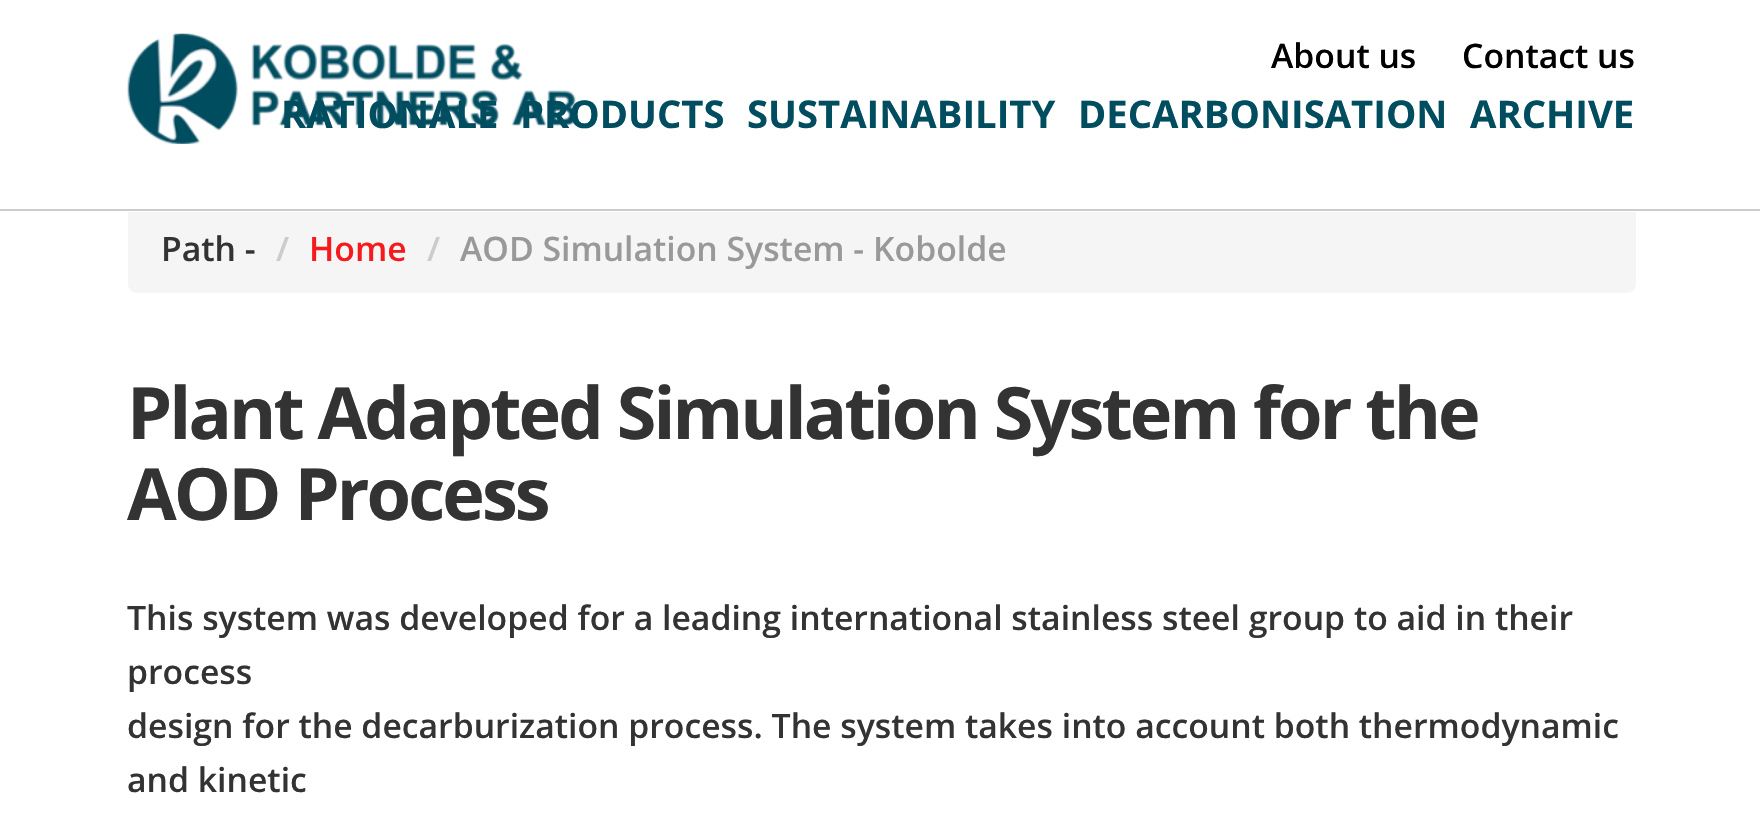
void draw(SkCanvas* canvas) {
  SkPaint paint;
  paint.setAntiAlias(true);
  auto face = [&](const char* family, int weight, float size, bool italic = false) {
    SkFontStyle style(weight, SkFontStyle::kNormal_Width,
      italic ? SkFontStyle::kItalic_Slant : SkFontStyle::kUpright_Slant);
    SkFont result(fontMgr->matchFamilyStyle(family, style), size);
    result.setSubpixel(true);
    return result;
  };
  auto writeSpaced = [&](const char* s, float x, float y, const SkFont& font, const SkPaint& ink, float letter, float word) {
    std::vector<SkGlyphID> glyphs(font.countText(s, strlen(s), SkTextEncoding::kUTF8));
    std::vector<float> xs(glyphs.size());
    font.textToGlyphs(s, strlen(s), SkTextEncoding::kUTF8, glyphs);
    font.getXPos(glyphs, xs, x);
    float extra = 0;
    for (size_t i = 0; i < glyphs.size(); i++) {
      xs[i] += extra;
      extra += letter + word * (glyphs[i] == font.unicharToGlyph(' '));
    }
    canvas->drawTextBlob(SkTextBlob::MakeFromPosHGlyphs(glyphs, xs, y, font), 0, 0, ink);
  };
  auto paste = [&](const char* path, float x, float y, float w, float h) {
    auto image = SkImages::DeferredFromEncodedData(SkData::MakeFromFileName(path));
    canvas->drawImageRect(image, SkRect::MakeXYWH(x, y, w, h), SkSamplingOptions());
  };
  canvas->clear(0xffffffff);
  paint.setColor(0xfff5f5f5);
  canvas->drawRoundRect(SkRect::MakeXYWH(128, 203, 1508, 90), 9, 9, paint);
  paint.setColor(0xffffffff);
  canvas->drawRect(SkRect::MakeXYWH(128, 203, 1508, 9), paint);
  paint.setColor(0xffcccccc);
  canvas->drawRect(SkRect::MakeXYWH(0, 209, 1760, 2), paint);
  paste("img/1.png", 127, 33, 450, 111);
  auto f0 = face("Open Sans", 600, 33.75f);
  paint.setColor(0xff000000);
  canvas->drawString("About us", 1271, 68, f0, paint);
  canvas->drawString("Contact us", 1462, 68, f0, paint);
  auto f1 = face("Open Sans", 700, 38.25f);
  paint.setColor(0xff004d60);
  {
    const struct { const char* s; float x, y; } items[] = {
      {"RATIONALE", 281, 128},
      {"PRODUCTS", 520, 128},
      {"SUSTAINABILITY", 747, 128},
      {"DECARBONISATION", 1078, 128},
      {"ARCHIVE", 1470, 128},
    };
    for (auto [s, x, y] : items) {
      canvas->drawString(s, x, y, f1, paint);
    }
  }
  paint.setColor(0xff333333);
  canvas->drawString("Path -", 161, 261, f0, paint);
  paint.setColor(0xffcccccc);
  canvas->drawString("/", 276, 261, f0, paint);
  paint.setColor(0xfff51b1c);
  canvas->drawString("Home", 309, 261, f0, paint);
  paint.setColor(0xffcccccc);
  canvas->drawString("/", 427, 261, f0, paint);
  paint.setColor(0xff999999);
  canvas->drawString("AOD Simulation System - Kobolde", 460, 261, f0, paint);
  auto f2 = face("Open Sans", 700, 72);
  paint.setColor(0xff333333);
  writeSpaced("Plant Adapted Simulation System for the", 127, 439, f2, paint, -2.9f, 0);
  writeSpaced("AOD Process", 127, 520, f2, paint, -2.9f, 0);
  {
    const struct { const char* s; float x, y; } items[] = {
      {"This system was developed for a leading international stainless steel group to aid in their", 127, 630},
      {"process", 127, 684},
      {"design for the decarburization process. The system takes into account both thermodynamic", 127, 738},
      {"and kinetic", 127, 792},
    };
    for (auto [s, x, y] : items) {
      canvas->drawString(s, x, y, f0, paint);
    }
  }
}
